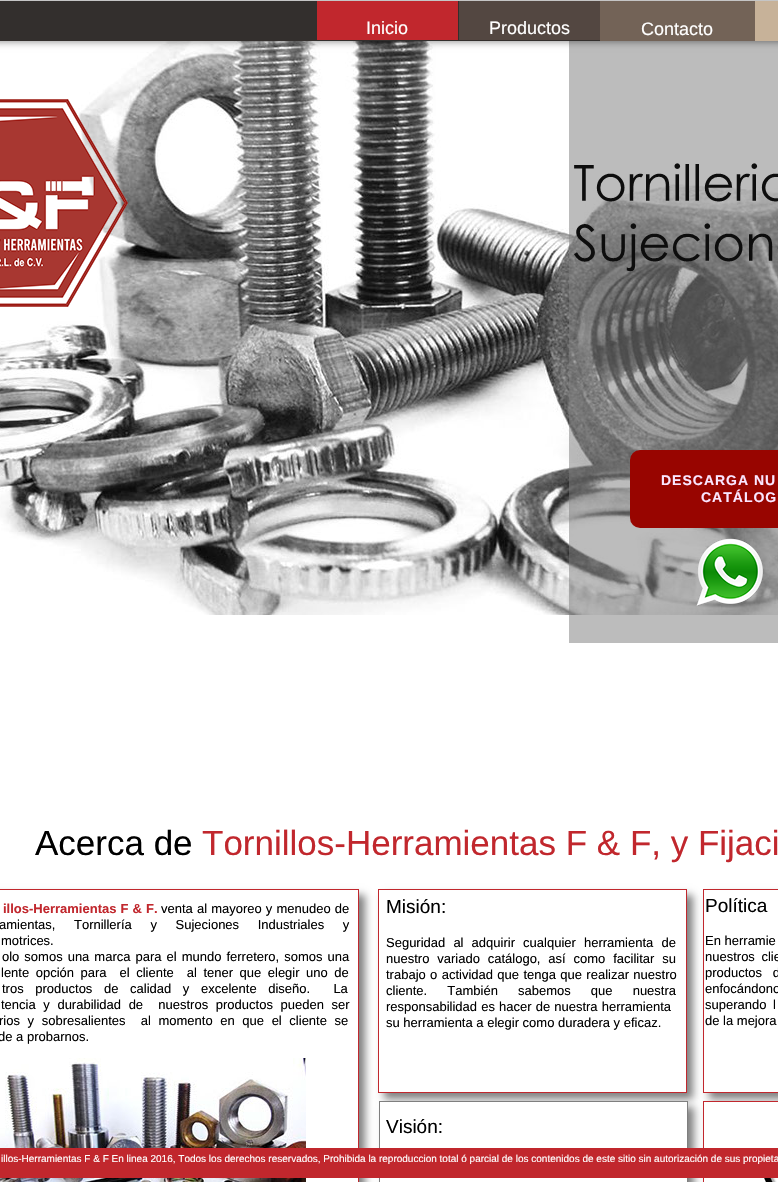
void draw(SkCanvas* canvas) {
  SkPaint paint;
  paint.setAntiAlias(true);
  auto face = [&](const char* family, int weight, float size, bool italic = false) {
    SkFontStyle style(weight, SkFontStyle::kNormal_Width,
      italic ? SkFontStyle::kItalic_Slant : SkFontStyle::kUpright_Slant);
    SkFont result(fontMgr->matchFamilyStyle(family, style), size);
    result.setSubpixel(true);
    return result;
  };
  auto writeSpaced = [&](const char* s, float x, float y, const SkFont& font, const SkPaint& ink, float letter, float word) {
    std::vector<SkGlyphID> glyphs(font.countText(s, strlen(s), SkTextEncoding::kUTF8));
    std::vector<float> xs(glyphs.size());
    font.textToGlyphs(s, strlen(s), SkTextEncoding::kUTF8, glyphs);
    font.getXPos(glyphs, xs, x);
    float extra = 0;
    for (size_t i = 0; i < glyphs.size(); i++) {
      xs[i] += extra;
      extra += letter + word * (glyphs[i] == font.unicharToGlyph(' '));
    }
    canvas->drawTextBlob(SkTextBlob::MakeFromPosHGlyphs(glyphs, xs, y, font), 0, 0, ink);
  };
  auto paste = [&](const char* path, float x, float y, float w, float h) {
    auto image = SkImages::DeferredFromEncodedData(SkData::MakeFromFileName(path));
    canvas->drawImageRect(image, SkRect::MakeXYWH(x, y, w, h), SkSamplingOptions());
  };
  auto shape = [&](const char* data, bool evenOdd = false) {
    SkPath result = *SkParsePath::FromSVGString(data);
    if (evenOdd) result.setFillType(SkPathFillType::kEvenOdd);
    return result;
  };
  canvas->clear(0xffffffff);
  paste("img/1.png", 0, 41, 778, 574);
  paint.setColor(0x857f7f7f);
  canvas->drawRect(SkRect::MakeXYWH(569, 41, 209, 602), paint);
  paint.setColor(0x80000000);
  paint.setMaskFilter(SkMaskFilter::MakeBlur(kNormal_SkBlurStyle, 4));
  canvas->drawRect(SkRect::MakeXYWH(-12, 1, 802, 40), paint);
  paint.setMaskFilter(nullptr);
  {
    const struct { float x, y, w, h; SkColor color; } items[] = {
      {0, 1, 600, 40, 0xff332f2d},
      {317, 1, 141, 39, 0xffc1272d},
      {459, 1, 141, 39, 0xff534741},
      {600, 1, 155, 40, 0xff736357},
      {755, 1, 23, 40, 0xffc7b299},
    };
    for (auto [x, y, w, h, color] : items) {
      paint.setColor(color);
      canvas->drawRect(SkRect::MakeXYWH(x, y, w, h), paint);
    }
  }
  canvas->save();
  canvas->clipPath(shape("M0 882H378V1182H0ZM-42 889H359V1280H-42Z", true), true);
  paint.setColor(0x80000000);
  paint.setMaskFilter(SkMaskFilter::MakeBlur(kNormal_SkBlurStyle, 4));
  canvas->drawRect(SkRect::MakeXYWH(-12, 895, 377, 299), paint);
  paint.setMaskFilter(nullptr);
  canvas->restore();
  paint.setStroke(true);
  paint.setStrokeWidth(1);
  paint.setColor(0xffc1272d);
  canvas->drawRect(SkRect::MakeXYWH(-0.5f, 889.5f, 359, 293), paint);
  paste("img/5.png", 0, 1058, 306, 124);
  paint.setStroke(false);
  paint.setColor(0x80000000);
  paint.setMaskFilter(SkMaskFilter::MakeBlur(kNormal_SkBlurStyle, 4));
  canvas->drawRect(SkRect::MakeXYWH(385, 1107, 309, 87), paint);
  paint.setMaskFilter(nullptr);
  canvas->save();
  canvas->clipPath(shape("M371 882H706V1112H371ZM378 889H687V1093H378Z", true), true);
  paint.setMaskFilter(SkMaskFilter::MakeBlur(kNormal_SkBlurStyle, 4));
  canvas->drawRect(SkRect::MakeXYWH(384, 895, 309, 204), paint);
  paint.setMaskFilter(nullptr);
  canvas->restore();
  paint.setColor(0xffffffff);
  canvas->drawRect(SkRect::MakeXYWH(379.5f, 1101.5f, 308, 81), paint);
  paint.setStroke(true);
  paint.setColor(0xff7f7f7f);
  canvas->drawRect(SkRect::MakeXYWH(379.5f, 1101.5f, 308, 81), paint);
  paint.setStroke(false);
  paint.setColor(0x80000000);
  paint.setMaskFilter(SkMaskFilter::MakeBlur(kNormal_SkBlurStyle, 4));
  canvas->drawRect(SkRect::MakeXYWH(709, 1107, 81, 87), paint);
  paint.setMaskFilter(nullptr);
  canvas->save();
  canvas->clipPath(shape("M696 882H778V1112H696ZM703 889H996V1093H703Z", true), true);
  paint.setMaskFilter(SkMaskFilter::MakeBlur(kNormal_SkBlurStyle, 4));
  canvas->drawRect(SkRect::MakeXYWH(709, 895, 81, 204), paint);
  paint.setMaskFilter(nullptr);
  canvas->restore();
  paint.setColor(0xffffffff);
  canvas->drawRect(SkRect::MakeXYWH(703.5f, 1101.5f, 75, 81), paint);
  paint.setStroke(true);
  paint.setColor(0xffc1272d);
  canvas->drawRect(SkRect::MakeXYWH(703.5f, 1101.5f, 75, 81), paint);
  paint.setStroke(false);
  canvas->drawRect(SkRect::MakeXYWH(0, 1148, 778, 30), paint);
  paste("img/2.png", 0, 99, 128, 208);
  paste("img/3.png", 574, 163, 204, 109);
  paint.setColor(0xff980500);
  canvas->drawRoundRect(SkRect::MakeXYWH(630, 450, 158, 78), 10, 10, paint);
  paste("img/4.png", 696, 538, 68, 68);
  paint.setStroke(true);
  paint.setColor(0xffc1272d);
  canvas->drawRect(SkRect::MakeXYWH(378.5f, 889.5f, 308, 203), paint);
  canvas->drawRect(SkRect::MakeXYWH(703.5f, 889.5f, 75, 203), paint);
  paste("img/6.png", 764, 1178, 13, 4);
  auto f0 = face("Liberation Sans", 400, 18);
  paint.setStroke(false);
  paint.setColor(0xffffffff);
  {
    const struct { const char* s; float x, y; } items[] = {
      {"Inicio", 366, 34},
      {"Productos", 489, 34},
      {"Contacto", 641, 35},
    };
    for (auto [s, x, y] : items) {
      canvas->drawString(s, x, y, f0, paint);
    }
  }
  auto f1 = face("Liberation Sans", 400, 10);
  canvas->drawString("illos-Herramientas F & F En linea 2016, Todos los derechos reservados, Prohibida la reproduccion total ó parcial de los contenidos de este sitio sin autorización de sus propieta", 1, 1162, f1, paint);
  auto f2 = face("Liberation Sans", 700, 14);
  paint.setColor(0xfffae6ff);
  writeSpaced("DESCARGA NU", 661, 485, f2, paint, 1, 0);
  writeSpaced("CATÁLOG", 701, 502, f2, paint, 1, 0);
  auto f3 = face("Liberation Sans", 400, 35);
  paint.setColor(0xff000000);
  canvas->drawString("Acerca de", 35, 855, f3, paint);
  paint.setColor(0xffc1272d);
  canvas->drawString("Tornillos-Herramientas F & F, y Fijaci", 202, 855, f3, paint);
  auto f4 = face("Liberation Sans", 700, 13);
  writeSpaced("illos-Herramientas F & F.", 3, 913, f4, paint, 0, 0.5f);
  auto f5 = face("Liberation Sans", 400, 13);
  paint.setColor(0xff000000);
  writeSpaced("venta al mayoreo y menudeo de", 161, 913, f5, paint, 0, 0.5f);
  writeSpaced("amientas, Tornillería y Sujeciones Industriales y", -1, 929, f5, paint, 0, 15);
  canvas->drawString("motrices.", 1, 945, f5, paint);
  writeSpaced("olo somos una marca para el mundo ferretero, somos una", 2, 961, f5, paint, 0, 1.4f);
  writeSpaced("lente opción para  el cliente  al tener que elegir uno de", 1, 977, f5, paint, 0, 2.9f);
  writeSpaced("tros productos de calidad y excelente diseño.  La", 2, 993, f5, paint, 0, 8);
  writeSpaced("tencia y durabilidad de  nuestros productos pueden ser", 1, 1009, f5, paint, 0, 4);
  writeSpaced("rios y sobresalientes  al momento en que el cliente se", -1, 1025, f5, paint, 0, 4);
  canvas->drawString("de a probarnos.", -2, 1041, f5, paint);
  auto f6 = face("Liberation Sans", 400, 19);
  canvas->drawString("Misión:", 386, 913, f6, paint);
  writeSpaced("Seguridad al adquirir cualquier herramienta de", 386, 947, f5, paint, 0, 4.5f);
  writeSpaced("nuestro variado catálogo, así como facilitar su", 386, 963, f5, paint, 0, 4.25f);
  writeSpaced("trabajo o actividad que tenga que realizar nuestro", 386, 979, f5, paint, 0, 0.75f);
  writeSpaced("cliente. También sabemos que nuestra", 386, 995, f5, paint, 0, 16.5f);
  writeSpaced("responsabilidad es hacer de nuestra herramienta", 386, 1011, f5, paint, 0, 0.5f);
  canvas->drawString("su herramienta a elegir como duradera y eficaz.", 386, 1027, f5, paint);
  canvas->drawString("Visión:", 386, 1133, f6, paint);
  canvas->drawString("Política", 705, 912, f6, paint);
  canvas->drawString("En herramie", 705, 945, f5, paint);
  writeSpaced("nuestros clie", 705, 961, f5, paint, 0, 3);
  writeSpaced("productos d", 705, 977, f5, paint, 0, 7);
  writeSpaced("enfocándono", 705, 993, f5, paint, 0, 2);
  writeSpaced("superando l", 705, 1009, f5, paint, 0, 2.9f);
  canvas->drawString("de la mejora", 705, 1025, f5, paint);
}
